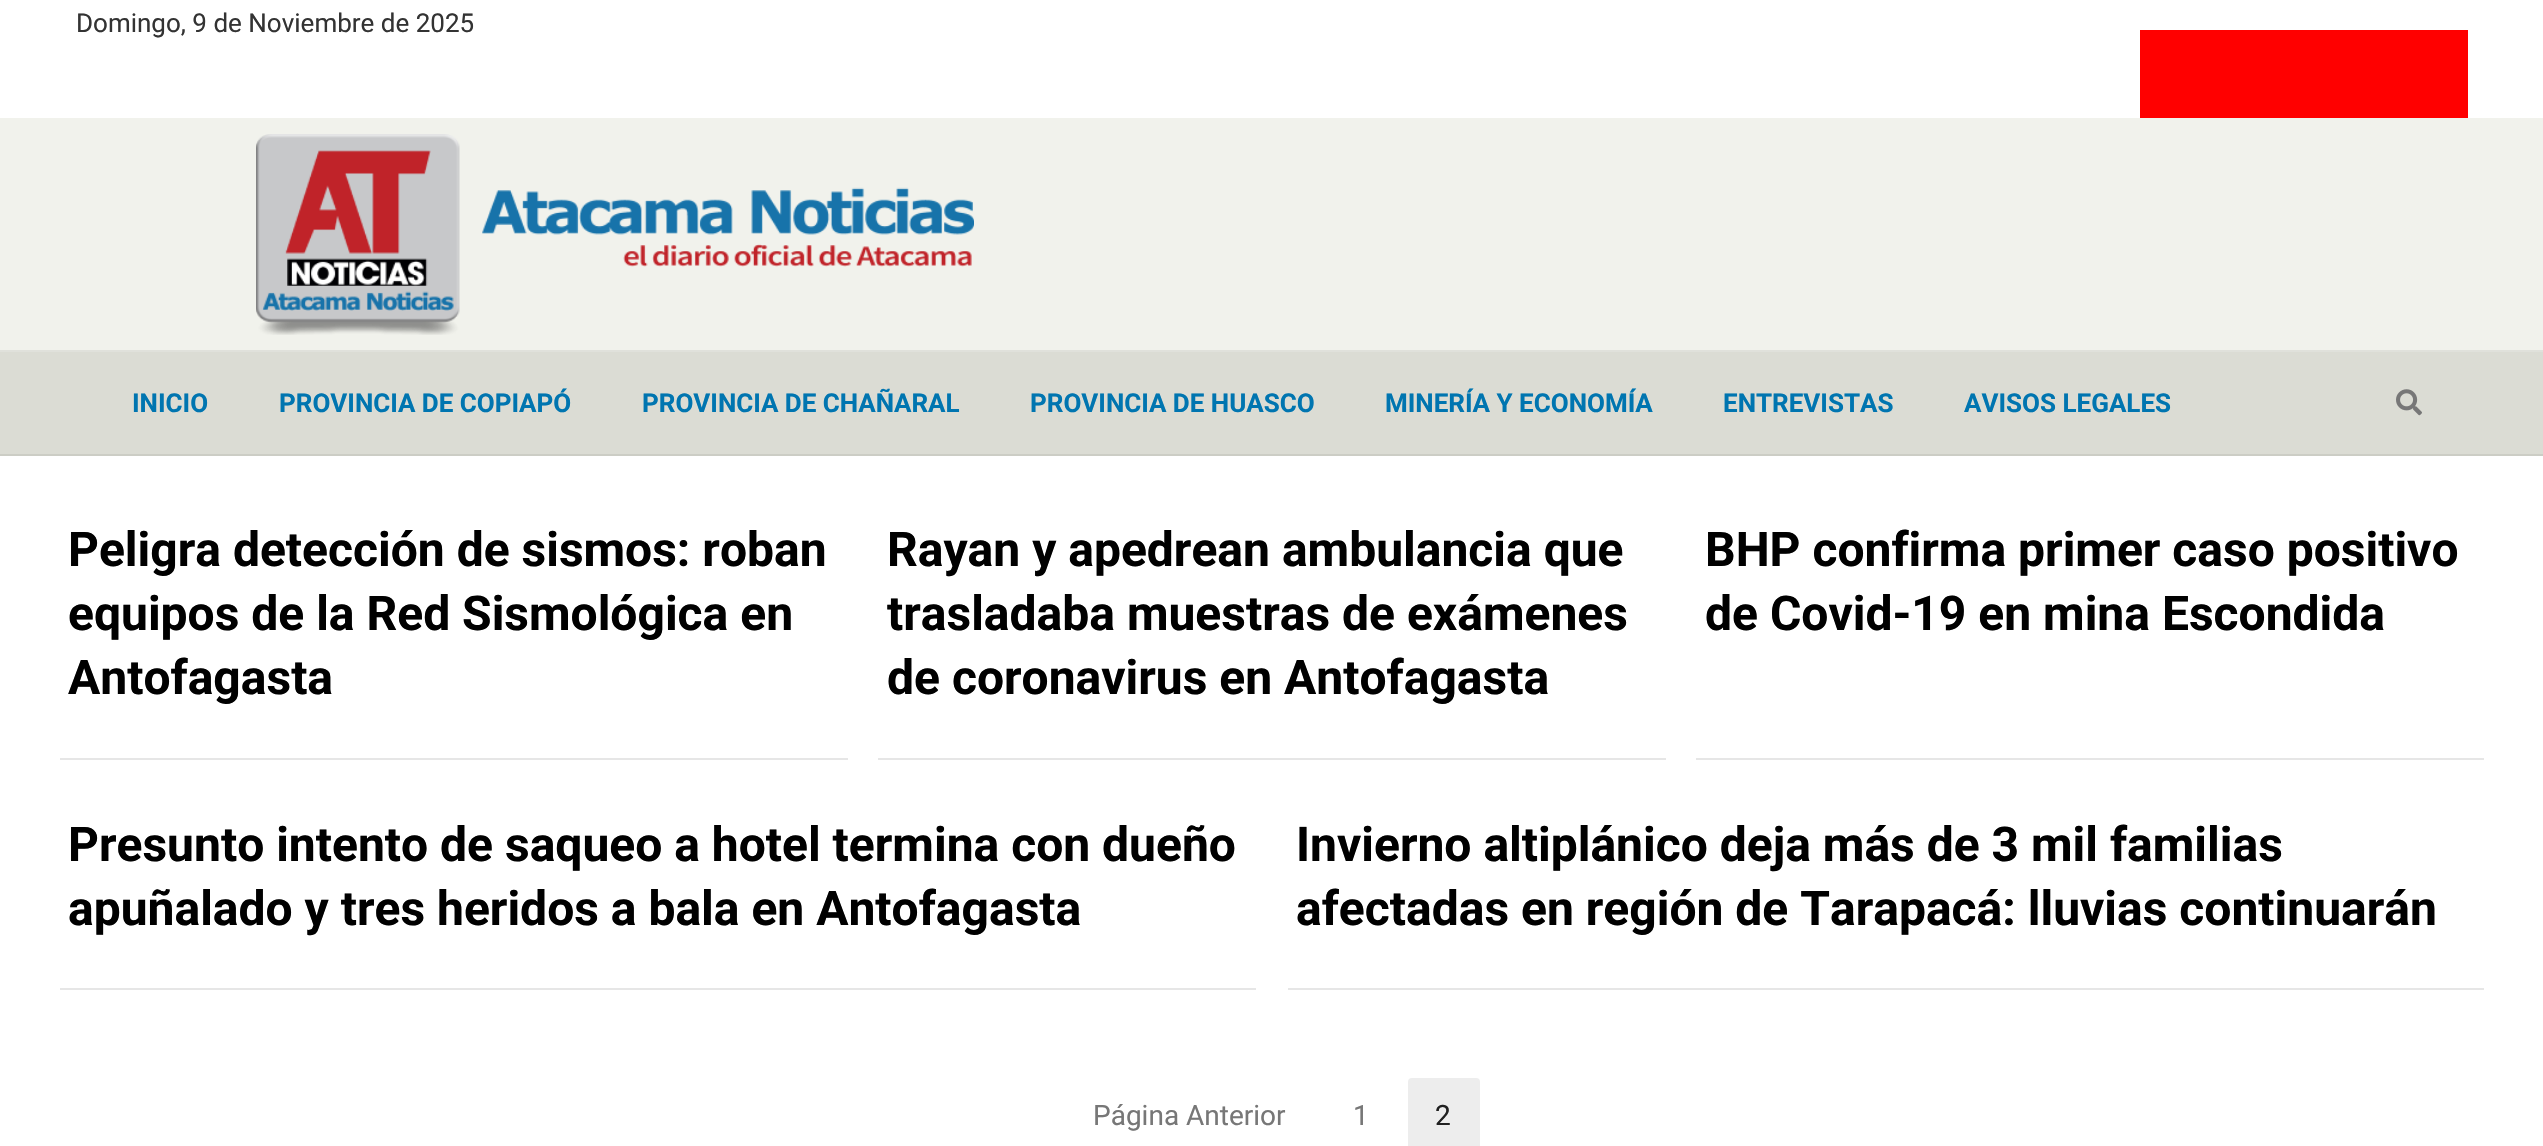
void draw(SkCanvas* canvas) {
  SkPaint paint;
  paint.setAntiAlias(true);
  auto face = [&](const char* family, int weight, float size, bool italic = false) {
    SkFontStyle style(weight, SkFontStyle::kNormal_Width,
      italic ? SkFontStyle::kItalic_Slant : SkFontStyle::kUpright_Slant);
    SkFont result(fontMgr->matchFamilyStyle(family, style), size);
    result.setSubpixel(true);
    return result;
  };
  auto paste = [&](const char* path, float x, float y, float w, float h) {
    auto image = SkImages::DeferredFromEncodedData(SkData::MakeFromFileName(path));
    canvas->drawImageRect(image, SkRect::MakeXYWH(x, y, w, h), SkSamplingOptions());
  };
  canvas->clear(0xffffffff);
  {
    const struct { float x, y, w, h; SkColor color; } items[] = {
      {2140, 30, 328, 88, 0xffff0000},
      {0, 118, 2543, 232, 0xfff1f2ec},
      {0, 350, 2543, 2, 0xffe0e1db},
    };
    for (auto [x, y, w, h, color] : items) {
      paint.setColor(color);
      canvas->drawRect(SkRect::MakeXYWH(x, y, w, h), paint);
    }
  }
  paste("img/1.png", 256, 134, 718, 201);
  paint.setColor(0xffdbdcd4);
  canvas->drawRect(SkRect::MakeXYWH(0, 352, 2543, 102), paint);
  paint.setColor(0xffcccdc5);
  canvas->drawRect(SkRect::MakeXYWH(0, 454, 2543, 2), paint);
  paste("img/2.png", 2396, 389, 26, 27);
  {
    const struct { float x, y, w, h; SkColor color; } items[] = {
      {60, 758, 788, 2, 0xffe6e6e6},
      {878, 758, 788, 2, 0xffe6e6e6},
      {1696, 758, 788, 2, 0xffe6e6e6},
      {60, 988, 1196, 2, 0xffe6e6e6},
      {1288, 988, 1196, 2, 0xffe6e6e6},
    };
    for (auto [x, y, w, h, color] : items) {
      paint.setColor(color);
      canvas->drawRect(SkRect::MakeXYWH(x, y, w, h), paint);
    }
  }
  paint.setColor(0xffededed);
  canvas->drawRoundRect(SkRect::MakeXYWH(1408, 1078, 72, 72), 4, 4, paint);
  auto f0 = face("Roboto", 400, 26);
  paint.setColor(0xff333333);
  canvas->drawString("Domingo, 9 de Noviembre de 2025", 76, 32, f0, paint);
  auto f1 = face("Roboto", 700, 26);
  paint.setColor(0xff0075b0);
  {
    const struct { const char* s; float x, y; } items[] = {
      {"INICIO", 132, 412},
      {"PROVINCIA DE COPIAPÓ", 279, 412},
      {"PROVINCIA DE CHAÑARAL", 642, 412},
      {"PROVINCIA DE HUASCO", 1030, 412},
      {"MINERÍA Y ECONOMÍA", 1385, 412},
      {"ENTREVISTAS", 1723, 412},
      {"AVISOS LEGALES", 1964, 412},
    };
    for (auto [s, x, y] : items) {
      canvas->drawString(s, x, y, f1, paint);
    }
  }
  auto f2 = face("Roboto", 700, 48);
  paint.setColor(0xff000000);
  {
    const struct { const char* s; float x, y; } items[] = {
      {"Peligra detección de sismos: roban", 68, 566},
      {"equipos de la Red Sismológica en", 68, 630},
      {"Antofagasta", 68, 694},
      {"Rayan y apedrean ambulancia que", 887, 566},
      {"trasladaba muestras de exámenes", 887, 630},
      {"de coronavirus en Antofagasta", 887, 694},
      {"BHP confirma primer caso positivo", 1705, 566},
      {"de Covid-19 en mina Escondida", 1705, 630},
      {"Presunto intento de saqueo a hotel termina con dueño", 68, 861},
      {"apuñalado y tres heridos a bala en Antofagasta", 68, 925},
      {"Invierno altiplánico deja más de 3 mil familias", 1296, 861},
      {"afectadas en región de Tarapacá: lluvias continuarán", 1296, 925},
    };
    for (auto [s, x, y] : items) {
      canvas->drawString(s, x, y, f2, paint);
    }
  }
  auto f3 = face("Roboto", 400, 28);
  paint.setColor(0xff777777);
  canvas->drawString("Página Anterior", 1093, 1125, f3, paint);
  canvas->drawString("1", 1353, 1125, f3, paint);
  paint.setColor(0xff212121);
  canvas->drawString("2", 1435, 1125, f3, paint);
}
